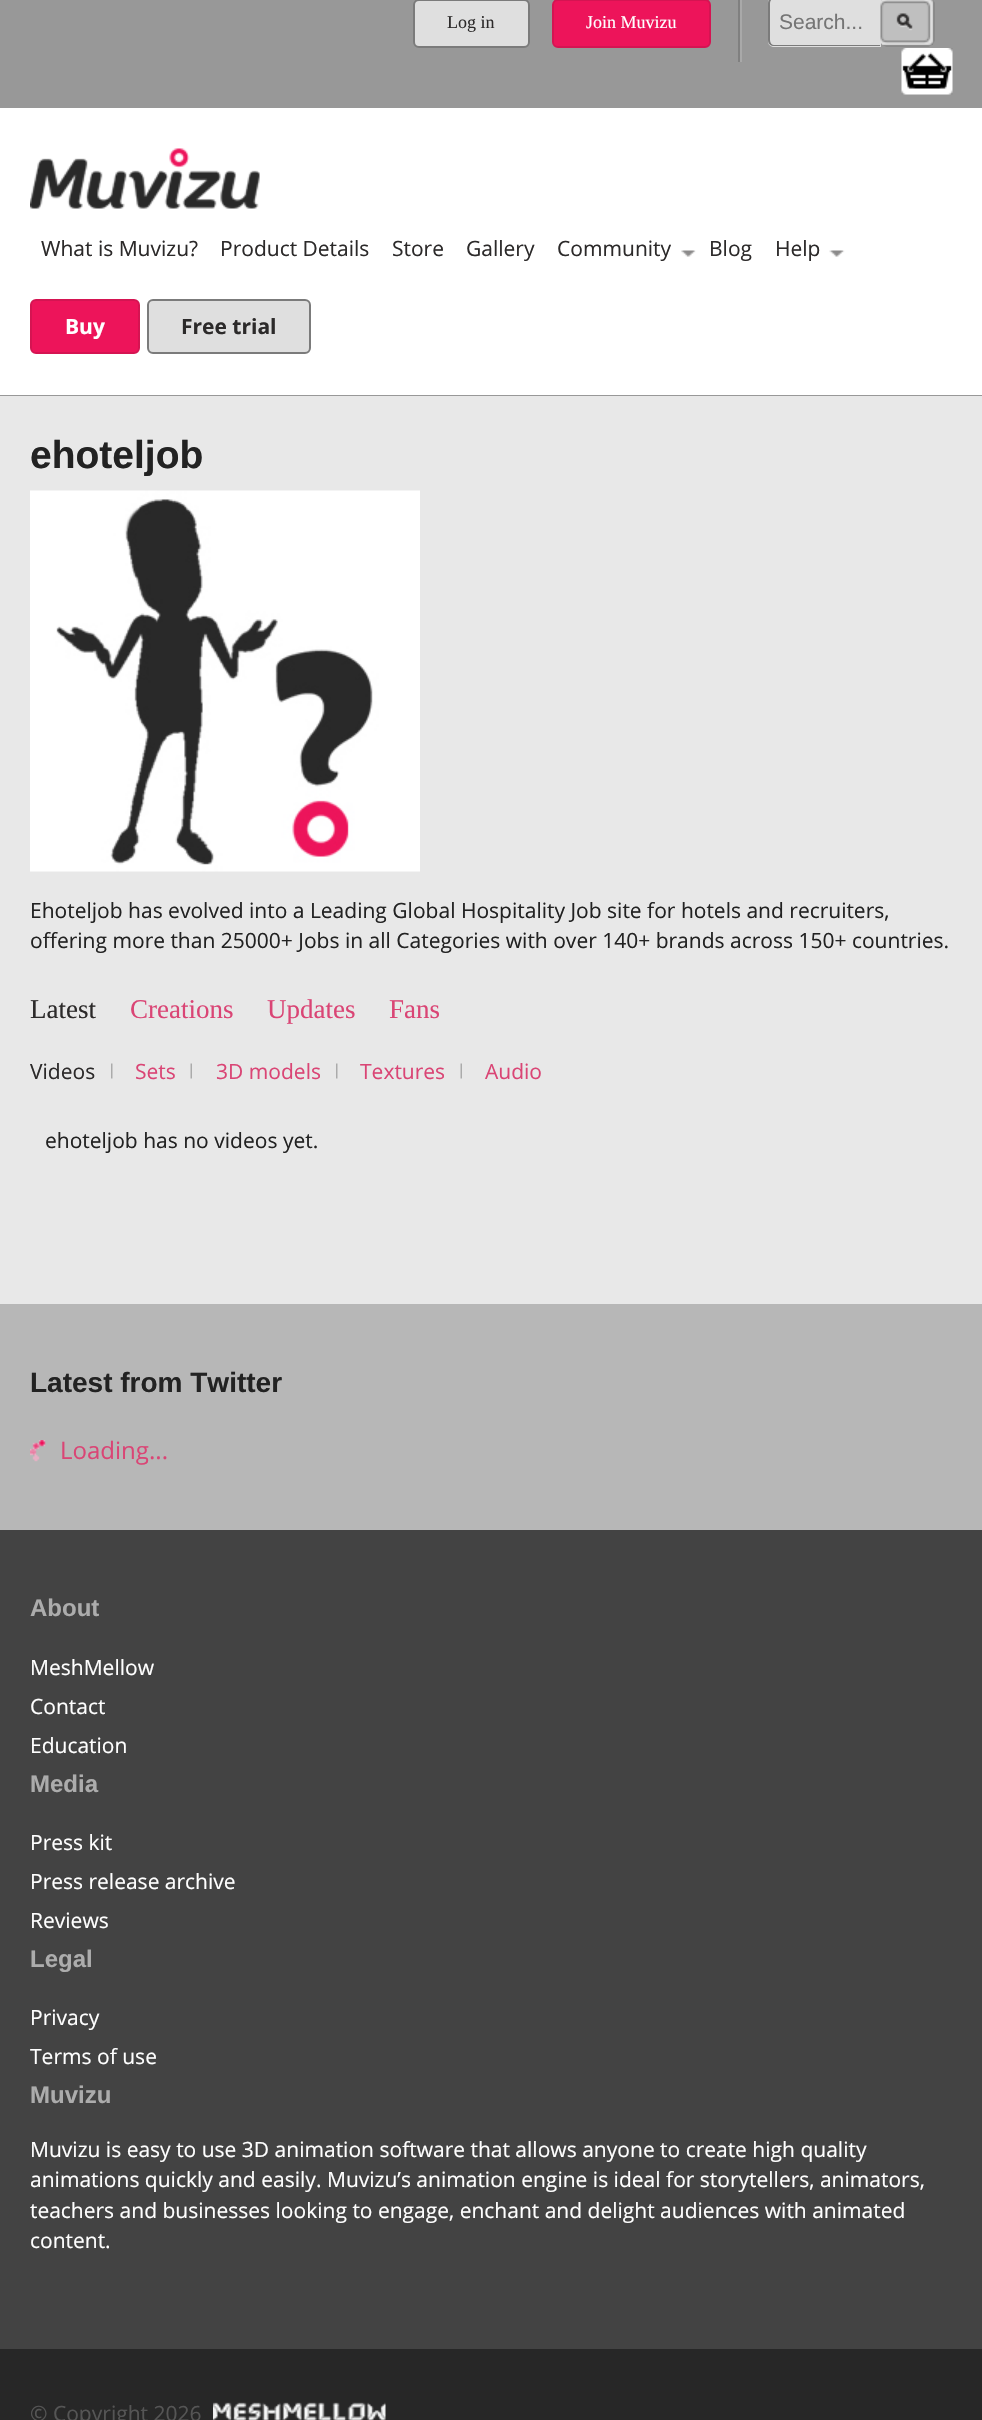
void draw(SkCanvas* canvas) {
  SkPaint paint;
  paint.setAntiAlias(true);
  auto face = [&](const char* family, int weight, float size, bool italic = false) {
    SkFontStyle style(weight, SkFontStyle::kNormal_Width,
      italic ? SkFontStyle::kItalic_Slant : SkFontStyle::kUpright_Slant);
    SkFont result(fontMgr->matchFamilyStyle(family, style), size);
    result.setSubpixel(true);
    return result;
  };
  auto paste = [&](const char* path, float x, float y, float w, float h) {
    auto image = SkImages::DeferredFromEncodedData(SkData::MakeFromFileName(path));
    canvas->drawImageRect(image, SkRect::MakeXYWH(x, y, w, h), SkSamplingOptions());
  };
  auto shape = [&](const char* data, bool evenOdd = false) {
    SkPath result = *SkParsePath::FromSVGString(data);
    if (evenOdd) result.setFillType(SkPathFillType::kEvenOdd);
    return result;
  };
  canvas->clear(0xffffffff);
  paint.setColor(0xff989898);
  canvas->drawRect(SkRect::MakeXYWH(0, 0, 982, 108), paint);
  paint.setColor(0xffa9a9a9);
  canvas->drawRect(SkRect::MakeXYWH(740, 0, 2, 62), paint);
  paint.setColor(0xffdfdfdf);
  canvas->drawRoundRect(SkRect::MakeXYWH(414, 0, 115, 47), 5, 5, paint);
  paint.setStroke(true);
  paint.setStrokeWidth(2);
  paint.setColor(0xff7b7b7b);
  canvas->drawRoundRect(SkRect::MakeXYWH(414, 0, 115, 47), 5, 5, paint);
  paint.setStroke(false);
  paint.setColor(0xff808080);
  canvas->drawRect(SkRect::MakeXYWH(738, 0, 2, 62), paint);
  paint.setColor(0xffed145a);
  canvas->drawRoundRect(SkRect::MakeXYWH(553, 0, 157, 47), 5, 5, paint);
  paint.setStroke(true);
  paint.setColor(0xffd51452);
  canvas->drawRoundRect(SkRect::MakeXYWH(553, 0, 157, 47), 5, 5, paint);
  paint.setStroke(false);
  paint.setColor(0xffdfdfdf);
  canvas->drawPath(shape("M774-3H881V47H774C770.5 47 768 44.5 768 41V3C768-.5 770.5-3 774-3Z"), paint);
  paint.setColor(0xff7b7b7b);
  canvas->drawPath(shape("M774-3H880V46H774C771 46 768 44 768 40V3C768 0 771-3 774-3ZM774-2H880V45H774C772 45 770 43 770 40V3C770 1 772-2 774-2Z", true), paint);
  paste("img/1.png", 880, 0, 55, 47);
  paste("img/2.png", 901, 48, 52, 47);
  paint.setColor(0xff989898);
  canvas->drawRect(SkRect::MakeXYWH(0, 395, 982, 1), paint);
  paste("img/3.png", 30, 148, 230, 61);
  paste("img/4.png", 681, 250, 15, 7);
  paste("img/5.png", 829, 250, 16, 7);
  paint.setColor(0xffed145a);
  canvas->drawRoundRect(SkRect::MakeXYWH(31, 300, 108, 53), 5, 5, paint);
  paint.setStroke(true);
  paint.setColor(0xffd51452);
  canvas->drawRoundRect(SkRect::MakeXYWH(31, 300, 108, 53), 5, 5, paint);
  paint.setStroke(false);
  paint.setColor(0xffdfdfdf);
  canvas->drawRoundRect(SkRect::MakeXYWH(148, 300, 162, 53), 5, 5, paint);
  paint.setStroke(true);
  paint.setColor(0xff7b7b7b);
  canvas->drawRoundRect(SkRect::MakeXYWH(148, 300, 162, 53), 5, 5, paint);
  paint.setStroke(false);
  paint.setColor(0xffe8e8e8);
  canvas->drawRect(SkRect::MakeXYWH(0, 396, 982, 908), paint);
  paste("img/6.png", 30, 490, 390, 382);
  paste("img/7.png", 111, 1063, 2, 16);
  paste("img/8.png", 190, 1063, 2, 16);
  paste("img/7.png", 336, 1063, 2, 16);
  paste("img/8.png", 460, 1063, 2, 16);
  paint.setColor(0xffb7b7b7);
  canvas->drawRect(SkRect::MakeXYWH(0, 1304, 982, 226), paint);
  paste("img/9.png", 30, 1440, 16, 22);
  paint.setColor(0xff434343);
  canvas->drawRect(SkRect::MakeXYWH(0, 1530, 982, 819), paint);
  paint.setColor(0xff272727);
  canvas->drawRect(SkRect::MakeXYWH(0, 2349, 982, 71), paint);
  paste("img/10.png", 213, 2402, 173, 18);
  auto f0 = face("Liberation Serif", 400, 18);
  paint.setColor(0xff2c2a2a);
  canvas->drawString("Log in", 447, 28, f0, paint);
  paint.setColor(0xffffffff);
  canvas->drawString("Join Muvizu", 586, 28, f0, paint);
  auto f1 = face("Liberation Sans", 400, 21);
  paint.setColor(0xff757575);
  canvas->drawString("Search...", 779, 29, f1, paint);
  auto f2 = face("Open Sans", 400, 21);
  paint.setColor(0xff2c2a2a);
  {
    const struct { const char* s; float x, y; } items[] = {
      {"What is Muvizu?", 41, 256},
      {"Product Details", 220, 256},
      {"Store", 392, 256},
      {"Gallery", 466, 256},
      {"Community", 557, 256},
      {"Blog", 709, 256},
      {"Help", 775, 256},
    };
    for (auto [s, x, y] : items) {
      canvas->drawString(s, x, y, f2, paint);
    }
  }
  auto f3 = face("Open Sans", 700, 21);
  paint.setColor(0xffffffff);
  canvas->drawString("Buy", 65, 334, f3, paint);
  paint.setColor(0xff2c2a2a);
  canvas->drawString("Free trial", 181, 334, f3, paint);
  auto f4 = face("Liberation Sans", 700, 39);
  paint.setColor(0xff222222);
  canvas->drawString("ehoteljob", 30, 468, f4, paint);
  canvas->drawString("Ehoteljob has evolved into a Leading Global Hospitality Job site for hotels and recruiters,", 30, 918, f2, paint);
  canvas->drawString("offering more than 25000+ Jobs in all Categories with over 140+ brands across 150+ countries.", 30, 948, f2, paint);
  auto f5 = face("Liberation Serif", 400, 27);
  paint.setColor(0xff2c2a2a);
  canvas->drawString("Latest", 30, 1018, f5, paint);
  paint.setColor(0xffda4575);
  {
    const struct { const char* s; float x, y; } items[] = {
      {"Creations", 130, 1018},
      {"Updates", 267, 1018},
      {"Fans", 389, 1018},
    };
    for (auto [s, x, y] : items) {
      canvas->drawString(s, x, y, f5, paint);
    }
  }
  paint.setColor(0xff2c2a2a);
  canvas->drawString("Videos", 30, 1079, f2, paint);
  paint.setColor(0xffda4575);
  {
    const struct { const char* s; float x, y; } items[] = {
      {"Sets", 135, 1079},
      {"3D models", 216, 1079},
      {"Textures", 360, 1079},
      {"Audio", 485, 1079},
    };
    for (auto [s, x, y] : items) {
      canvas->drawString(s, x, y, f2, paint);
    }
  }
  paint.setColor(0xff222222);
  canvas->drawString("ehoteljob has no videos yet.", 45, 1148, f2, paint);
  auto f6 = face("Liberation Sans", 700, 28);
  canvas->drawString("Latest from Twitter", 30, 1392, f6, paint);
  auto f7 = face("Open Sans", 400, 24);
  paint.setColor(0xffda4575);
  canvas->drawString("Loading...", 60, 1459, f7, paint);
  auto f8 = face("Liberation Sans", 700, 24);
  paint.setColor(0xffacacac);
  canvas->drawString("About", 30, 1616, f8, paint);
  paint.setColor(0xffffffff);
  {
    const struct { const char* s; float x, y; } items[] = {
      {"MeshMellow", 30, 1675},
      {"Contact", 30, 1714},
      {"Education", 30, 1753},
    };
    for (auto [s, x, y] : items) {
      canvas->drawString(s, x, y, f2, paint);
    }
  }
  paint.setColor(0xffacacac);
  canvas->drawString("Media", 30, 1792, f8, paint);
  paint.setColor(0xffffffff);
  {
    const struct { const char* s; float x, y; } items[] = {
      {"Press kit", 30, 1850},
      {"Press release archive", 30, 1889},
      {"Reviews", 30, 1928},
    };
    for (auto [s, x, y] : items) {
      canvas->drawString(s, x, y, f2, paint);
    }
  }
  paint.setColor(0xffacacac);
  canvas->drawString("Legal", 30, 1967, f8, paint);
  paint.setColor(0xffffffff);
  canvas->drawString("Privacy", 30, 2025, f2, paint);
  canvas->drawString("Terms of use", 30, 2064, f2, paint);
  paint.setColor(0xffacacac);
  canvas->drawString("Muvizu", 30, 2103, f8, paint);
  paint.setColor(0xffffffff);
  {
    const struct { const char* s; float x, y; } items[] = {
      {"Muvizu is easy to use 3D animation software that allows anyone to create high quality", 30, 2157},
      {"animations quickly and easily. Muvizu’s animation engine is ideal for storytellers, animators,", 30, 2187},
      {"teachers and businesses looking to engage, enchant and delight audiences with animated", 30, 2218},
      {"content.", 30, 2248},
    };
    for (auto [s, x, y] : items) {
      canvas->drawString(s, x, y, f2, paint);
    }
  }
  paint.setColor(0xff555555);
  canvas->drawString("© Copyright 2026", 30, 2421, f2, paint);
}
